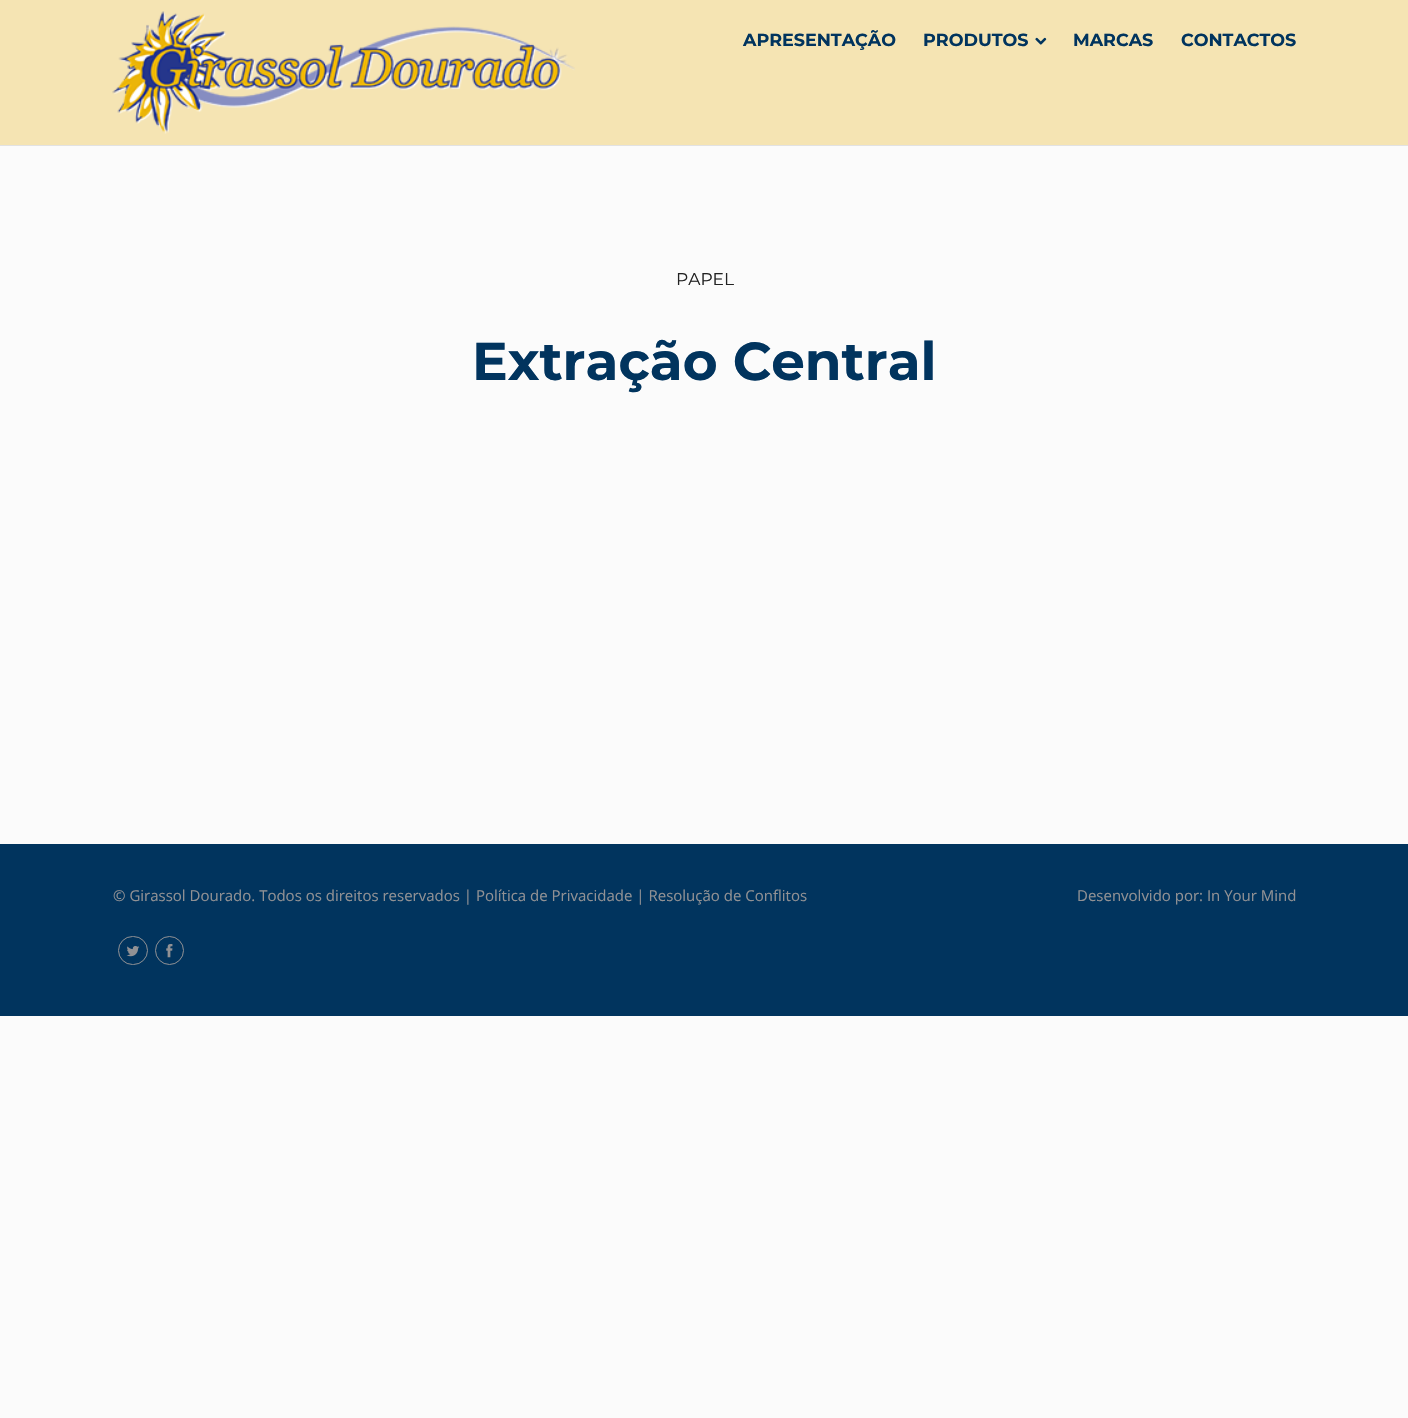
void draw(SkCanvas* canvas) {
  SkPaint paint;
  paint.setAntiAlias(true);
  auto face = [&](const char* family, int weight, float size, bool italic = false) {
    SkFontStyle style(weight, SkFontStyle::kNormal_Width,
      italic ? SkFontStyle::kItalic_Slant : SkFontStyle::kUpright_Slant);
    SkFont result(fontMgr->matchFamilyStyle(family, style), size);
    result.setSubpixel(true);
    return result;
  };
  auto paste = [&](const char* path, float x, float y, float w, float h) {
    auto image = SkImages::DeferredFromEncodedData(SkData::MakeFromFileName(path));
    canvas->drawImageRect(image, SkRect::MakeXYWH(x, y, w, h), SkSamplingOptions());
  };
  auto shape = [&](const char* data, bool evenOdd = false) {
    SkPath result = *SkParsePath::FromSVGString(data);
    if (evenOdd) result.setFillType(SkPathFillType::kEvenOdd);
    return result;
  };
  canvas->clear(0xfffbfbfb);
  paint.setColor(0xffe2e2e2);
  canvas->drawPath(shape("M0 145V146H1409V1V145Z"), paint);
  paint.setColor(0xfff5e4b3);
  canvas->drawRect(SkRect::MakeXYWH(0, 0, 1408, 145), paint);
  paste("img/1.png", 112, 11, 463, 123);
  paste("img/2.png", 1035, 37, 12, 8);
  paint.setColor(0xff01345e);
  canvas->drawRect(SkRect::MakeXYWH(0, 844, 1408, 172), paint);
  paint.setStroke(true);
  paint.setStrokeWidth(1);
  paint.setColor(0xff919194);
  canvas->drawRoundRect(SkRect::MakeXYWH(118.5f, 936.5f, 29, 28), 14, 14, paint);
  paste("img/3.png", 126, 946, 14, 11);
  canvas->drawCircle(169.5f, 950.5f, 14, paint);
  paste("img/4.png", 166, 944, 7, 14);
  auto f0 = face("Montserrat", 700, 17.5f);
  paint.setStroke(false);
  paint.setColor(0xff01345e);
  {
    const struct { const char* s; float x, y; } items[] = {
      {"APRESENTAÇÃO", 743, 46},
      {"PRODUTOS", 923, 46},
      {"MARCAS", 1073, 46},
      {"CONTACTOS", 1181, 46},
    };
    for (auto [s, x, y] : items) {
      canvas->drawString(s, x, y, f0, paint);
    }
  }
  auto f1 = face("Montserrat", 400, 17);
  paint.setColor(0xff222222);
  canvas->drawString("PAPEL", 676, 285, f1, paint);
  auto f2 = face("Montserrat", 700, 53.25f);
  paint.setColor(0xff01345e);
  canvas->drawString("Extração Central", 472, 380, f2, paint);
  auto f3 = face("Open Sans", 400, 15);
  paint.setColor(0xff919194);
  canvas->drawString("© Girassol Dourado. Todos os direitos reservados | Política de Privacidade | Resolução de Conflitos", 113, 901, f3, paint);
  canvas->drawString("Desenvolvido por: In Your Mind", 1077, 901, f3, paint);
}
